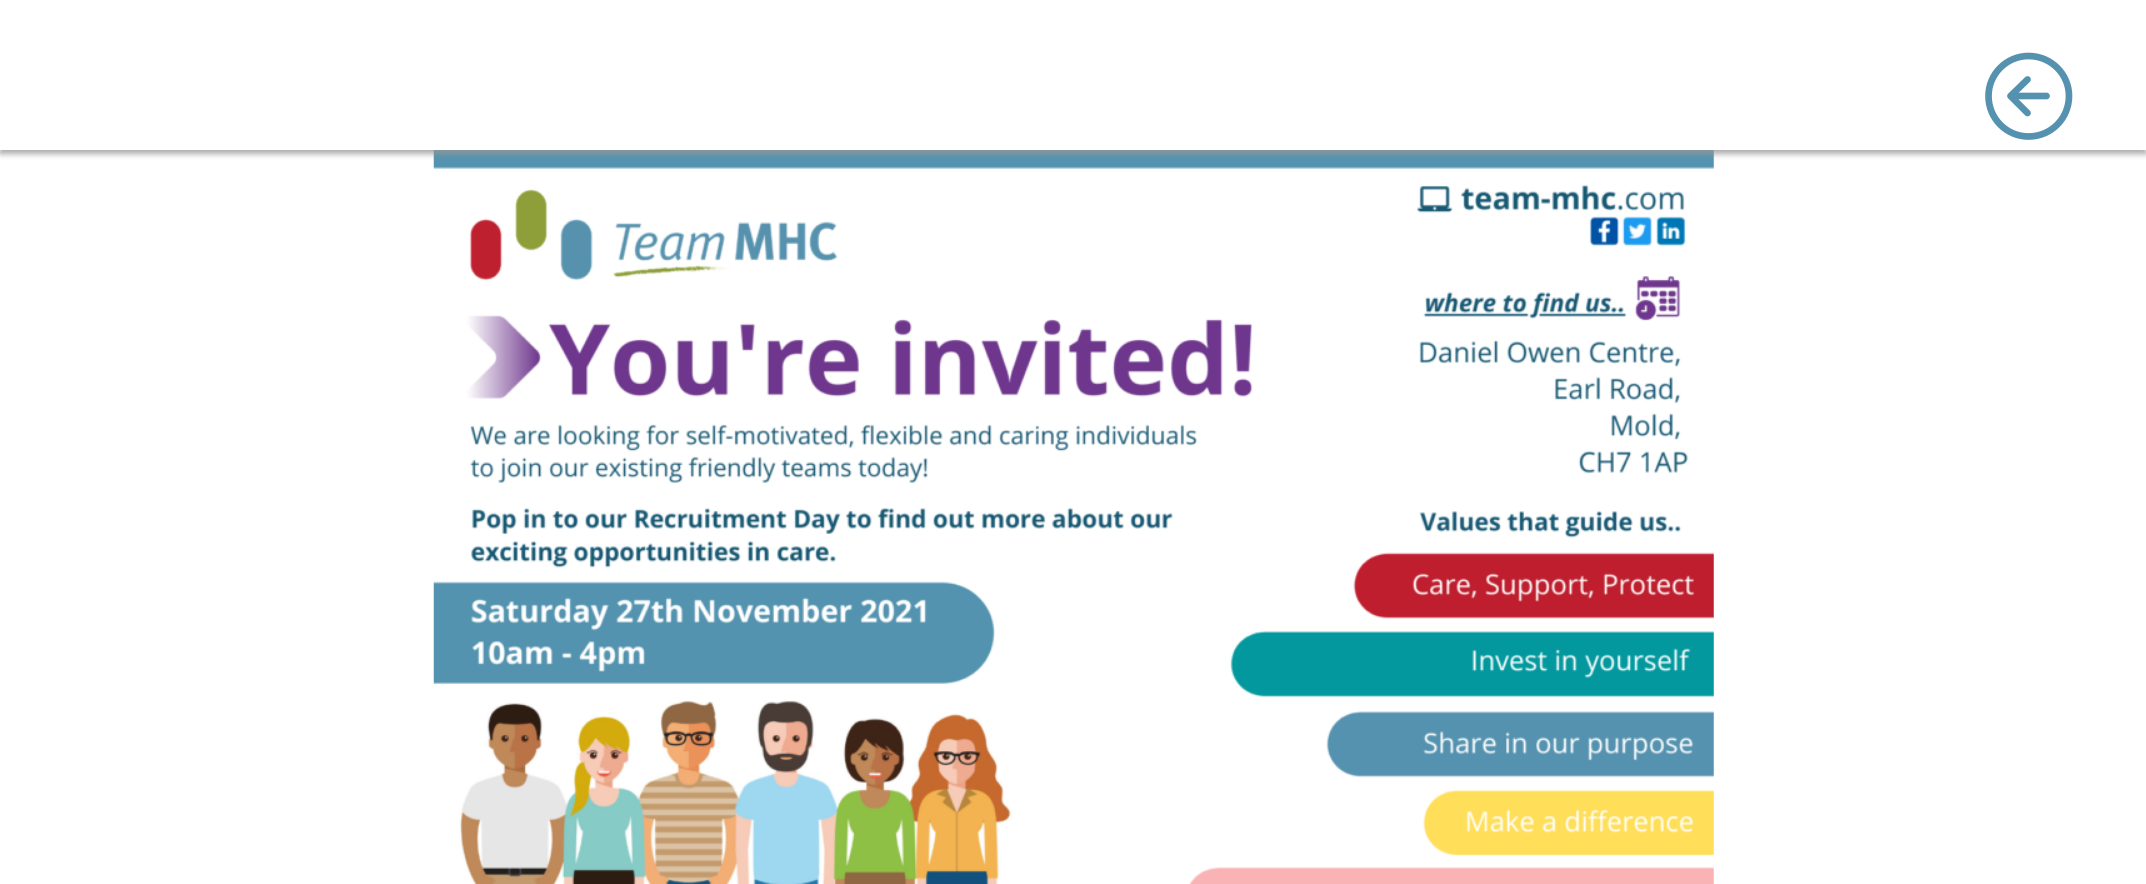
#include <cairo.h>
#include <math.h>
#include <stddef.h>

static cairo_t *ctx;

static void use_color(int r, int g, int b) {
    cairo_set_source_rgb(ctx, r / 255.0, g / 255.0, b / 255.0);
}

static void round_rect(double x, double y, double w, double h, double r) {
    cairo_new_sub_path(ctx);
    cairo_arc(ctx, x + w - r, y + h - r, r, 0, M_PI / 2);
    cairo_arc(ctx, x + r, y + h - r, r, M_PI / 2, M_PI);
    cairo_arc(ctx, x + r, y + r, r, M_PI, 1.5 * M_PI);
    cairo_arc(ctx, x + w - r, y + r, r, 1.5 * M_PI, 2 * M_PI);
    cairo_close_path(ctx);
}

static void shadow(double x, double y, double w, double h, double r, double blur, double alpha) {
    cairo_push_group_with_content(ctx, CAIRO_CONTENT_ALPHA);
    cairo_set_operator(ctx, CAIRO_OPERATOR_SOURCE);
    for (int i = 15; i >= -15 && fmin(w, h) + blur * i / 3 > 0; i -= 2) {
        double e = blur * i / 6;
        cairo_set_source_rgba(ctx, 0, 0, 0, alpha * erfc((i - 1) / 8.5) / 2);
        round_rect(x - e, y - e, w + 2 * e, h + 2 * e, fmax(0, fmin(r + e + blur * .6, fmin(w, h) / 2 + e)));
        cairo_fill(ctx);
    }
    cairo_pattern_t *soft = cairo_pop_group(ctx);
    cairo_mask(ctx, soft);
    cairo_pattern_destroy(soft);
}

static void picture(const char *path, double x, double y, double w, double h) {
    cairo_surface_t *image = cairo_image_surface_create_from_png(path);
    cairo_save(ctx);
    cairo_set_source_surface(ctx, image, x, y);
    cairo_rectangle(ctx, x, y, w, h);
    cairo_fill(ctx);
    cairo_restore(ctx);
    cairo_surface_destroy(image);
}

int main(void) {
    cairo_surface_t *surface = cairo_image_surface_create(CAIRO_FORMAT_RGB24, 2146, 884);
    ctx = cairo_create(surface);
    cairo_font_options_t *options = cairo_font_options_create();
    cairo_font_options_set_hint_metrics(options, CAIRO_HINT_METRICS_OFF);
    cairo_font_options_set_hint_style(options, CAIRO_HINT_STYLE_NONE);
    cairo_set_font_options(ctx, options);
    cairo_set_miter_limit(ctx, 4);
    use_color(255, 255, 255);
    cairo_paint(ctx);
    picture("img1.png", 433, 150, 1281, 734);
    use_color(150, 150, 150);
    shadow(0, 4, 2146, 150, 0, 3, 0.81);
    use_color(255, 255, 255);
    cairo_rectangle(ctx, 0, 0, 2146, 150);
    cairo_fill(ctx);
    cairo_new_path(ctx);
    cairo_move_to(ctx, 2027.5, 113);
    cairo_line_to(ctx, 2010.5, 96);
    cairo_line_to(ctx, 2027.5, 79.5);
    cairo_move_to(ctx, 2013, 96);
    cairo_line_to(ctx, 2046.5, 96);
    use_color(85, 146, 175);
    cairo_set_line_width(ctx, 6.7);
    cairo_set_line_cap(ctx, CAIRO_LINE_CAP_ROUND);
    cairo_set_line_join(ctx, CAIRO_LINE_JOIN_ROUND);
    cairo_stroke(ctx);
    cairo_new_path(ctx);
    cairo_move_to(ctx, 2069, 96);
    cairo_curve_to(ctx, 2069, 74, 2051, 56, 2028.5, 56);
    cairo_curve_to(ctx, 2006.5, 56, 1988.5, 74, 1988.5, 96);
    cairo_curve_to(ctx, 1988.5, 118.5, 2006.5, 136.5, 2028.5, 136.5);
    cairo_curve_to(ctx, 2051, 136.5, 2069, 118.5, 2069, 96);
    cairo_close_path(ctx);
    cairo_set_line_cap(ctx, CAIRO_LINE_CAP_BUTT);
    cairo_set_line_join(ctx, CAIRO_LINE_JOIN_MITER);
    cairo_stroke(ctx);
    cairo_surface_write_to_png(surface, "result.png");
    cairo_font_options_destroy(options);
    cairo_destroy(ctx);
    cairo_surface_destroy(surface);
    return 0;
}
